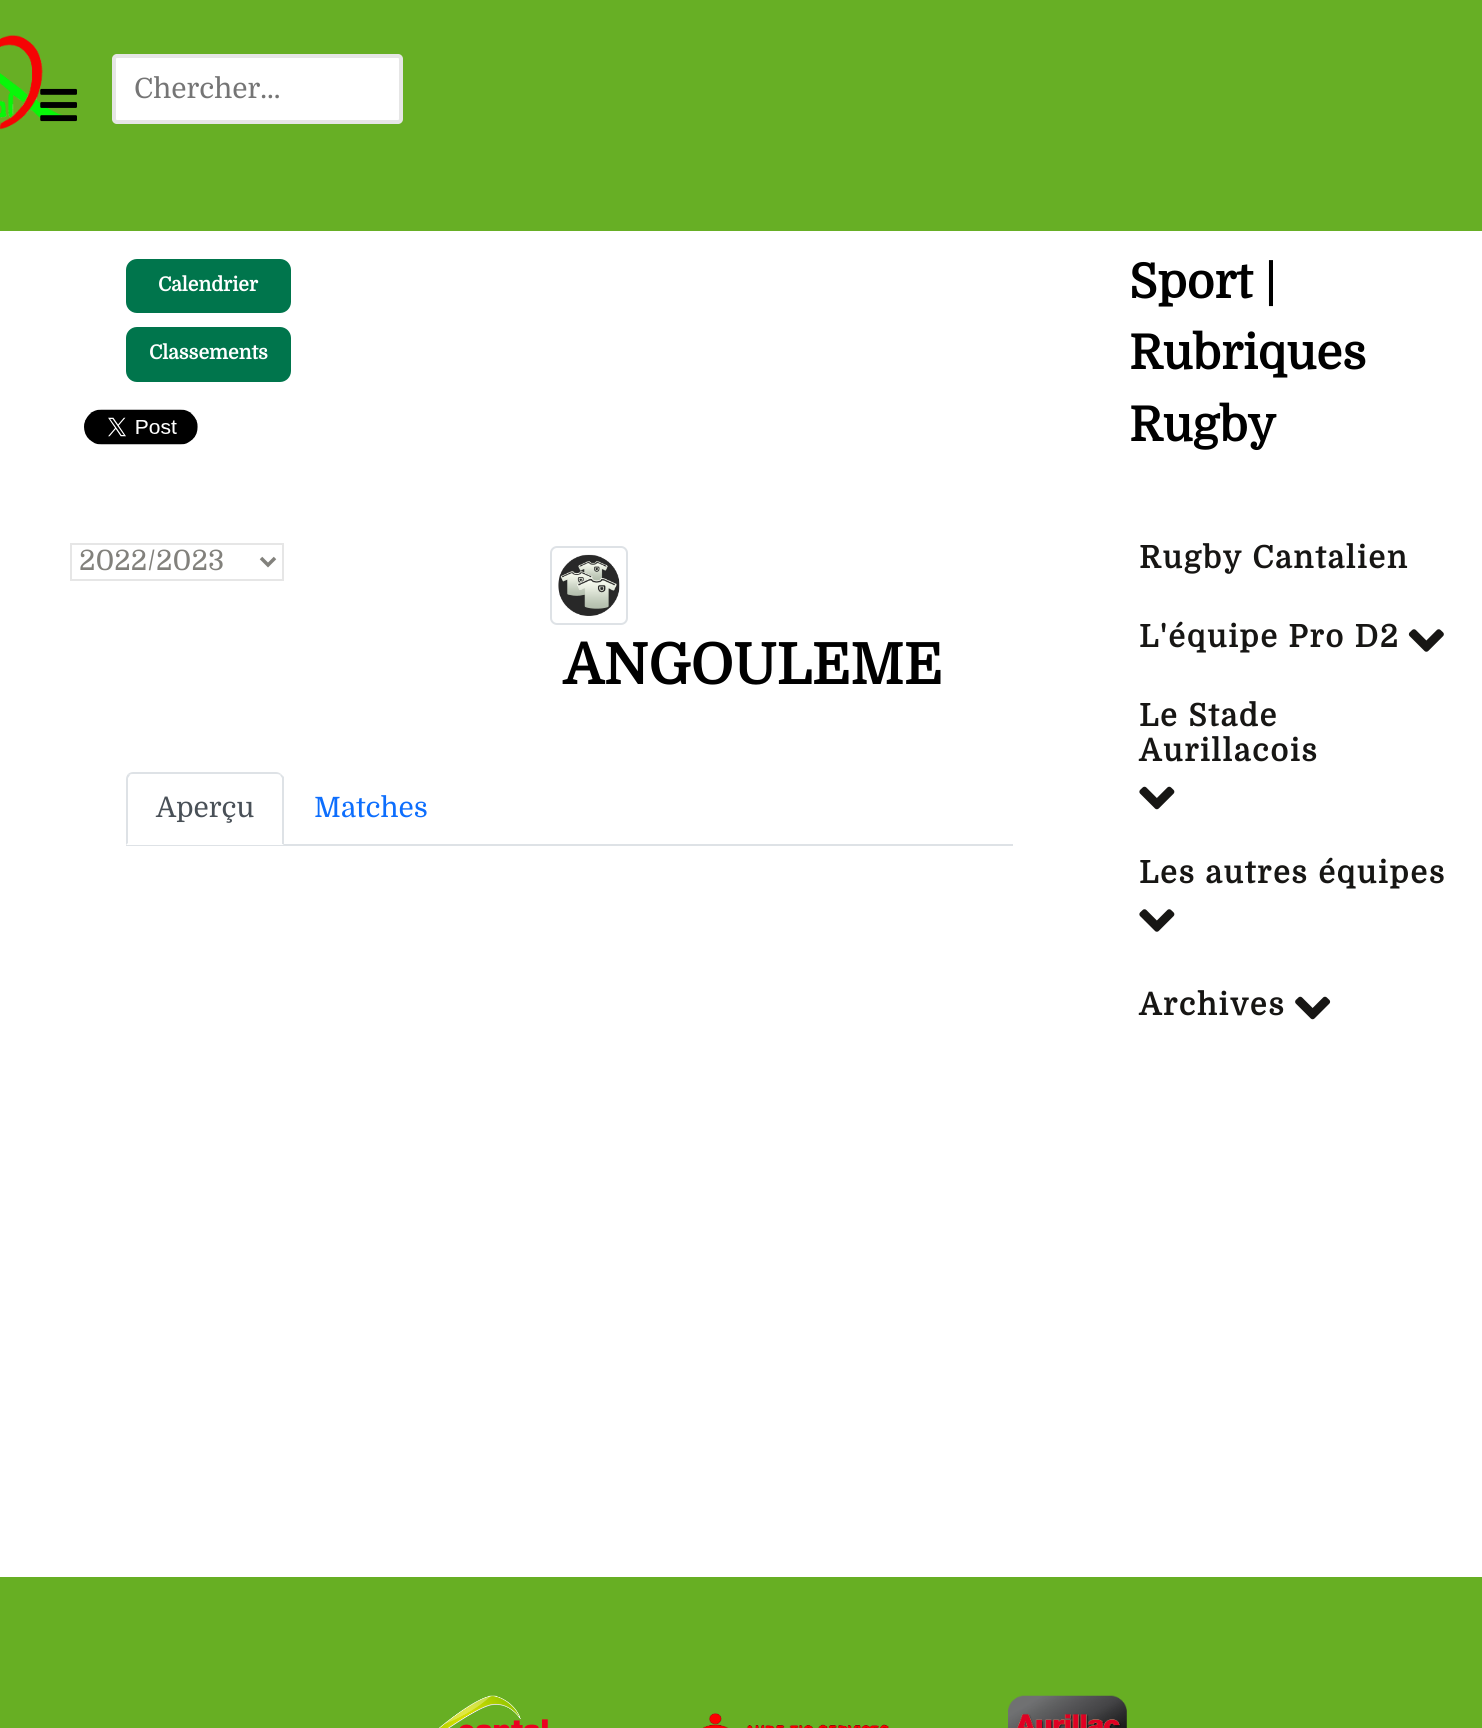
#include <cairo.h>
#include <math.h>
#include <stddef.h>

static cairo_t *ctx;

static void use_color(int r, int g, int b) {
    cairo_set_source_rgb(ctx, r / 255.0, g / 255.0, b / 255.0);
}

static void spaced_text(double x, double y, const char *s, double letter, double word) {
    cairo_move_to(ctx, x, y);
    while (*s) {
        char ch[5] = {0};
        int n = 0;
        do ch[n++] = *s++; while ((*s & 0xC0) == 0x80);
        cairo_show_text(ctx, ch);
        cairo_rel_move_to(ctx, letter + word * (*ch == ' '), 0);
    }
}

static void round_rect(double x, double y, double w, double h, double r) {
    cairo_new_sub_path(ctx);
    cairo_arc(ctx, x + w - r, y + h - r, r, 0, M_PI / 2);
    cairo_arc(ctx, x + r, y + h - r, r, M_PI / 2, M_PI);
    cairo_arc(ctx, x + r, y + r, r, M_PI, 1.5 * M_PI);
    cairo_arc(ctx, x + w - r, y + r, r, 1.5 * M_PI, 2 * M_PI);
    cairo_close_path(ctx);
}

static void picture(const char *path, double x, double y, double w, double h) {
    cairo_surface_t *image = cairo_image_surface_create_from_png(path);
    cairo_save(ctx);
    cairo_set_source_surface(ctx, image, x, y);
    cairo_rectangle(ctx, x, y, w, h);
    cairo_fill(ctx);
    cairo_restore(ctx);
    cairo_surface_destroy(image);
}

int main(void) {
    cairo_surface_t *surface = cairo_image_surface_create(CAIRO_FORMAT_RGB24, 1482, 1728);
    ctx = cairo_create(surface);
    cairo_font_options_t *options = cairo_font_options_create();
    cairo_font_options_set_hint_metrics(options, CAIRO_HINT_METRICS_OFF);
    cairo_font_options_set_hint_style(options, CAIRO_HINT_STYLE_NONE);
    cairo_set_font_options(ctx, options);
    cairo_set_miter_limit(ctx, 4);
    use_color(255, 255, 255);
    cairo_paint(ctx);
    use_color(103, 175, 37);
    cairo_rectangle(ctx, 0, 0, 1482, 231);
    cairo_fill(ctx);
    picture("img2.png", 0, 35, 64, 95);
    picture("img1.png", 40, 88, 37, 34);
    use_color(255, 255, 255);
    round_rect(112, 54, 291, 70, 5);
    cairo_fill(ctx);
    round_rect(114, 56, 287, 66, 3);
    cairo_set_source_rgba(ctx, 0, 0, 0, 0.1);
    cairo_set_line_width(ctx, 4);
    cairo_stroke(ctx);
    cairo_select_font_face(ctx, "Domine", CAIRO_FONT_SLANT_NORMAL, CAIRO_FONT_WEIGHT_NORMAL);
    cairo_set_font_size(ctx, 28);
    use_color(117, 117, 117);
    cairo_move_to(ctx, 134, 98);
    cairo_show_text(ctx, "Chercher...");
    use_color(0, 117, 76);
    round_rect(126, 259, 165, 54, 11);
    cairo_fill(ctx);
    cairo_select_font_face(ctx, "Domine", CAIRO_FONT_SLANT_NORMAL, CAIRO_FONT_WEIGHT_BOLD);
    cairo_set_font_size(ctx, 19.5);
    use_color(255, 255, 255);
    cairo_move_to(ctx, 158, 291);
    cairo_show_text(ctx, "Calendrier");
    use_color(0, 117, 76);
    round_rect(126, 327, 165, 55, 11);
    cairo_fill(ctx);
    use_color(255, 255, 255);
    cairo_move_to(ctx, 149, 359);
    cairo_show_text(ctx, "Classements");
    picture("img3.png", 84, 409, 114, 36);
    cairo_rectangle(ctx, 71, 544, 212, 36);
    use_color(230, 230, 230);
    cairo_set_line_width(ctx, 2);
    cairo_stroke(ctx);
    cairo_new_path(ctx);
    cairo_move_to(ctx, 261, 558);
    cairo_line_to(ctx, 268, 565);
    cairo_line_to(ctx, 275, 558);
    use_color(130, 129, 124);
    cairo_set_line_width(ctx, 3.5);
    cairo_stroke(ctx);
    cairo_select_font_face(ctx, "Domine", CAIRO_FONT_SLANT_NORMAL, CAIRO_FONT_WEIGHT_NORMAL);
    cairo_set_font_size(ctx, 28);
    cairo_move_to(ctx, 79, 570);
    cairo_show_text(ctx, "2022/2023");
    round_rect(551, 547, 76, 77, 6);
    use_color(222, 226, 230);
    cairo_set_line_width(ctx, 2);
    cairo_stroke(ctx);
    picture("img4.png", 558, 554, 62, 62);
    cairo_select_font_face(ctx, "Domine", CAIRO_FONT_SLANT_NORMAL, CAIRO_FONT_WEIGHT_BOLD);
    cairo_set_font_size(ctx, 56);
    use_color(0, 0, 0);
    cairo_move_to(ctx, 563, 684);
    cairo_show_text(ctx, "ANGOULEME");
    use_color(222, 226, 230);
    cairo_rectangle(ctx, 126, 844, 887, 2);
    cairo_fill(ctx);
    use_color(255, 255, 255);
    cairo_new_path(ctx);
    cairo_move_to(ctx, 133, 772);
    cairo_line_to(ctx, 277, 772);
    cairo_curve_to(ctx, 281, 772, 284, 775, 284, 779);
    cairo_line_to(ctx, 284, 845);
    cairo_line_to(ctx, 126, 845);
    cairo_line_to(ctx, 126, 779);
    cairo_curve_to(ctx, 126, 775, 129, 772, 133, 772);
    cairo_close_path(ctx);
    cairo_fill(ctx);
    use_color(222, 226, 230);
    cairo_new_path(ctx);
    cairo_move_to(ctx, 133, 772);
    cairo_curve_to(ctx, 131, 772, 129, 773, 128, 774);
    cairo_line_to(ctx, 130, 775);
    cairo_curve_to(ctx, 130, 774, 132, 774, 133, 774);
    cairo_line_to(ctx, 276, 774);
    cairo_curve_to(ctx, 277, 774, 279, 774, 280, 775);
    cairo_line_to(ctx, 281, 774);
    cairo_curve_to(ctx, 280, 773, 278, 772, 276, 772);
    cairo_close_path(ctx);
    cairo_fill(ctx);
    cairo_new_path(ctx);
    cairo_move_to(ctx, 281, 774);
    cairo_line_to(ctx, 284, 777);
    cairo_line_to(ctx, 284, 845);
    cairo_line_to(ctx, 282, 844);
    cairo_line_to(ctx, 282, 778);
    cairo_line_to(ctx, 280, 775);
    cairo_close_path(ctx);
    cairo_fill(ctx);
    use_color(255, 255, 255);
    cairo_new_path(ctx);
    cairo_move_to(ctx, 283, 845);
    cairo_line_to(ctx, 126, 845);
    cairo_line_to(ctx, 128, 843);
    cairo_line_to(ctx, 128, 844);
    cairo_line_to(ctx, 282, 844);
    cairo_close_path(ctx);
    cairo_fill(ctx);
    use_color(222, 226, 230);
    cairo_new_path(ctx);
    cairo_move_to(ctx, 126, 779);
    cairo_line_to(ctx, 126, 845);
    cairo_line_to(ctx, 128, 843);
    cairo_line_to(ctx, 128, 778);
    cairo_line_to(ctx, 130, 775);
    cairo_line_to(ctx, 128, 774);
    cairo_curve_to(ctx, 127, 775, 126, 777, 126, 779);
    cairo_close_path(ctx);
    cairo_fill(ctx);
    cairo_select_font_face(ctx, "Domine", CAIRO_FONT_SLANT_NORMAL, CAIRO_FONT_WEIGHT_NORMAL);
    cairo_set_font_size(ctx, 28);
    use_color(73, 80, 87);
    cairo_move_to(ctx, 156, 817);
    cairo_show_text(ctx, "Aperçu");
    use_color(13, 110, 253);
    cairo_move_to(ctx, 314, 817);
    cairo_show_text(ctx, "Matches");
    cairo_select_font_face(ctx, "Domine", CAIRO_FONT_SLANT_NORMAL, CAIRO_FONT_WEIGHT_BOLD);
    cairo_set_font_size(ctx, 47.5);
    use_color(0, 0, 0);
    cairo_move_to(ctx, 1129, 298);
    cairo_show_text(ctx, "Sport |");
    cairo_move_to(ctx, 1129, 369);
    cairo_show_text(ctx, "Rubriques");
    cairo_move_to(ctx, 1129, 441);
    cairo_show_text(ctx, "Rugby");
    cairo_set_font_size(ctx, 30.75);
    use_color(23, 22, 20);
    spaced_text(1139, 568, "Rugby Cantalien", 1.75, 0);
    spaced_text(1139, 647, "L'équipe Pro D2", 1.75, 0);
    picture("img5.png", 1408, 629, 36, 23);
    spaced_text(1139, 726, "Le Stade", 1.75, 0);
    spaced_text(1139, 761, "Aurillacois", 1.75, 0);
    picture("img6.png", 1139, 786, 36, 24);
    spaced_text(1139, 883, "Les autres équipes", 1.75, 0);
    picture("img7.png", 1139, 909, 36, 23);
    spaced_text(1139, 1015, "Archives", 1.75, 0);
    picture("img8.png", 1295, 996, 36, 24);
    use_color(103, 175, 35);
    cairo_rectangle(ctx, 0, 1577, 1482, 151);
    cairo_fill(ctx);
    picture("img9.png", 439, 1695, 109, 33);
    picture("img10.png", 702, 1713, 187, 15);
    picture("img11.png", 1008, 1695, 119, 33);
    cairo_surface_write_to_png(surface, "result.png");
    cairo_font_options_destroy(options);
    cairo_destroy(ctx);
    cairo_surface_destroy(surface);
    return 0;
}
